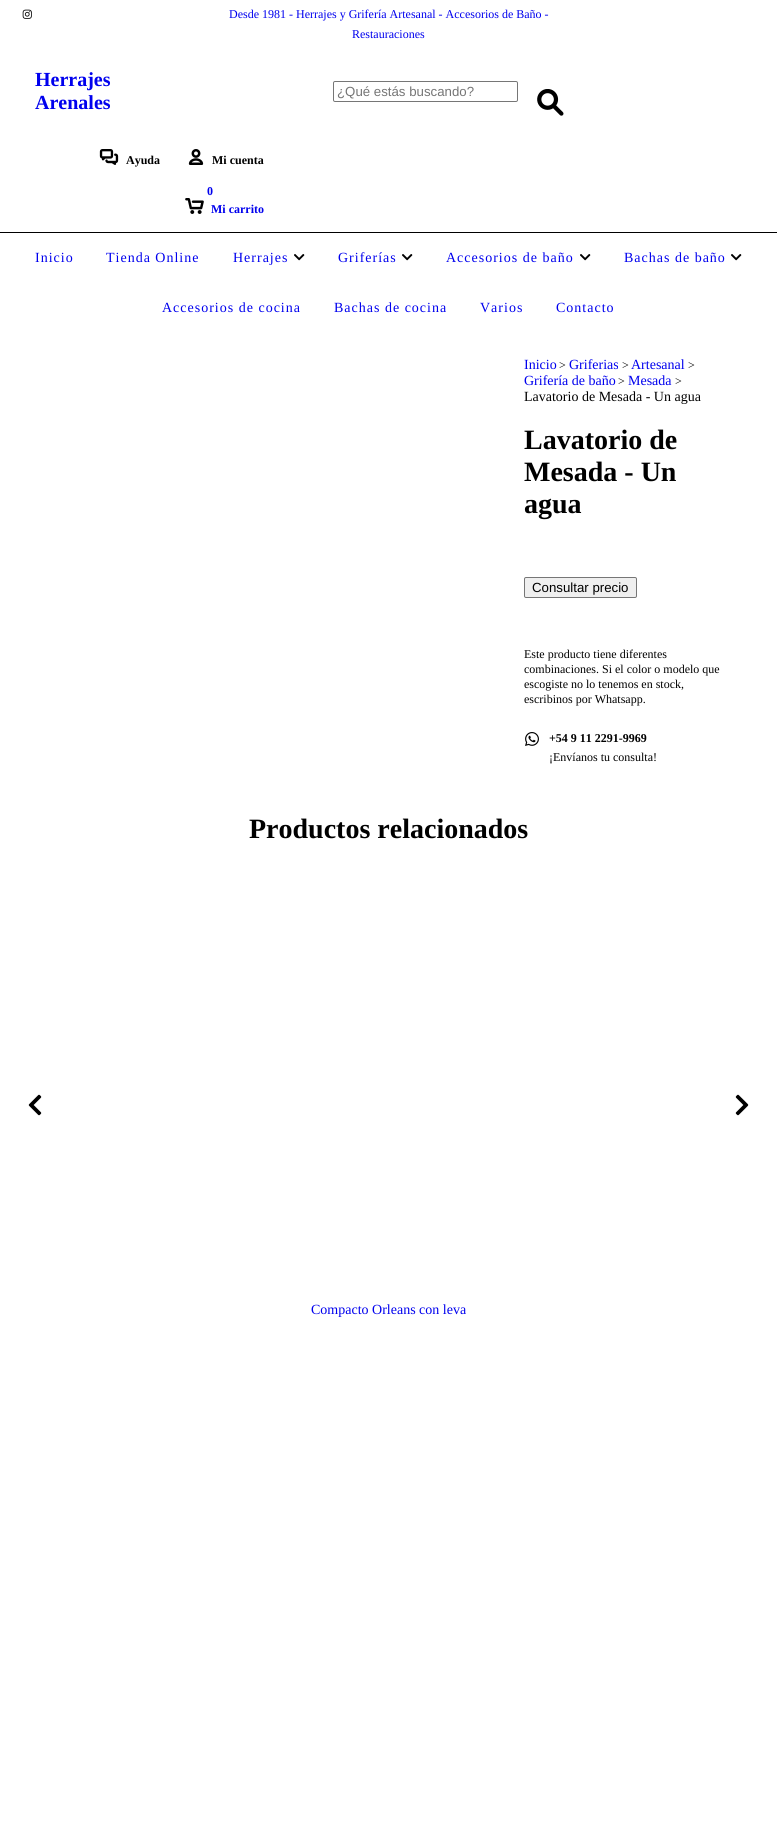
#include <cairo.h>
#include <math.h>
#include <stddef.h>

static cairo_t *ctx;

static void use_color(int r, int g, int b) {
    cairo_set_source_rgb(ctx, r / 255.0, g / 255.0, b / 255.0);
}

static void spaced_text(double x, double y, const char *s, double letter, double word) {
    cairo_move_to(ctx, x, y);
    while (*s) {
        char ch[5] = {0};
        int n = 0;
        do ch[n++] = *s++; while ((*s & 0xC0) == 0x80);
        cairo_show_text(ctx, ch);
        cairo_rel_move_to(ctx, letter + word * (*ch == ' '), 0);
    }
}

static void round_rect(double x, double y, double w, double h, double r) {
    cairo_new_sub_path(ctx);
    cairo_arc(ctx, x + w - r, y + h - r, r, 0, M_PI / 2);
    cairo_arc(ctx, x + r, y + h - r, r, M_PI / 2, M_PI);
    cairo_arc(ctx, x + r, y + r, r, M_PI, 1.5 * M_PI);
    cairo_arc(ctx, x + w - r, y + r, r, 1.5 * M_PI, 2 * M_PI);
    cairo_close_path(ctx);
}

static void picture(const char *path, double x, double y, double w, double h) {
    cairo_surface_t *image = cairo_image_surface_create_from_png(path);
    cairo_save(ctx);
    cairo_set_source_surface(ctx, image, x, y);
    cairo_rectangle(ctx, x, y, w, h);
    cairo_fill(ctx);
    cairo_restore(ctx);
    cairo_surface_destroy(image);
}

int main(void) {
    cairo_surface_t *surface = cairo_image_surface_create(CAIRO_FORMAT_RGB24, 777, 1822);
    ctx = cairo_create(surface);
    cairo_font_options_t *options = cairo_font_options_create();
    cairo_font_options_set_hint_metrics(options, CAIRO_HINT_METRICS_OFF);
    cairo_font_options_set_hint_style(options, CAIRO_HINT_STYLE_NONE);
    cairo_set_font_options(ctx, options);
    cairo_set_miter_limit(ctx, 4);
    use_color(255, 255, 255);
    cairo_paint(ctx);
    picture("img1.png", 22, 9, 10, 10);
    cairo_select_font_face(ctx, "Liberation Serif", CAIRO_FONT_SLANT_NORMAL, CAIRO_FONT_WEIGHT_NORMAL);
    cairo_set_font_size(ctx, 12);
    use_color(0, 0, 238);
    cairo_move_to(ctx, 229, 18);
    cairo_show_text(ctx, "Desde 1981 - Herrajes y Grifería Artesanal - Accesorios de Baño -");
    cairo_move_to(ctx, 352, 38);
    cairo_show_text(ctx, "Restauraciones");
    cairo_select_font_face(ctx, "Liberation Serif", CAIRO_FONT_SLANT_NORMAL, CAIRO_FONT_WEIGHT_BOLD);
    cairo_set_font_size(ctx, 20);
    cairo_move_to(ctx, 35, 86);
    cairo_show_text(ctx, "Herrajes");
    cairo_move_to(ctx, 35, 109);
    cairo_show_text(ctx, "Arenales");
    round_rect(333.5, 81.5, 184, 20, 1.5);
    use_color(118, 118, 118);
    cairo_set_line_width(ctx, 1);
    cairo_stroke(ctx);
    cairo_select_font_face(ctx, "Liberation Sans", CAIRO_FONT_SLANT_NORMAL, CAIRO_FONT_WEIGHT_NORMAL);
    cairo_set_font_size(ctx, 13.25);
    use_color(117, 117, 117);
    cairo_move_to(ctx, 337, 96);
    cairo_show_text(ctx, "¿Qué estás buscando?");
    picture("img2.png", 537, 89, 27, 27);
    picture("img3.png", 99, 149, 20, 16);
    cairo_select_font_face(ctx, "Liberation Serif", CAIRO_FONT_SLANT_NORMAL, CAIRO_FONT_WEIGHT_BOLD);
    cairo_set_font_size(ctx, 12);
    use_color(0, 0, 0);
    cairo_move_to(ctx, 126, 164);
    cairo_show_text(ctx, "Ayuda");
    picture("img4.png", 188, 149, 16, 16);
    cairo_move_to(ctx, 212, 164);
    cairo_show_text(ctx, "Mi cuenta");
    use_color(0, 0, 238);
    cairo_move_to(ctx, 207, 195);
    cairo_show_text(ctx, "0");
    picture("img5.png", 185, 198, 19, 16);
    cairo_move_to(ctx, 211, 213);
    cairo_show_text(ctx, "Mi carrito");
    use_color(0, 0, 0);
    cairo_rectangle(ctx, 0, 232, 777, 1);
    cairo_fill(ctx);
    cairo_select_font_face(ctx, "Liberation Serif", CAIRO_FONT_SLANT_NORMAL, CAIRO_FONT_WEIGHT_NORMAL);
    cairo_set_font_size(ctx, 14);
    use_color(0, 0, 238);
    spaced_text(35, 262, "Inicio", 1, 0);
    spaced_text(106, 262, "Tienda Online", 1, 0);
    spaced_text(233, 262, "Herrajes", 1, 0);
    picture("img6.png", 294, 254, 11, 7);
    spaced_text(338, 262, "Griferías", 1, 0);
    picture("img6.png", 402, 254, 11, 7);
    spaced_text(446, 262, "Accesorios de baño", 1, 0);
    picture("img6.png", 580, 254, 11, 7);
    spaced_text(624, 262, "Bachas de baño", 1, 0);
    picture("img6.png", 731, 254, 11, 7);
    spaced_text(162, 312, "Accesorios de cocina", 1, 0);
    spaced_text(334, 312, "Bachas de cocina", 1, 0);
    spaced_text(480, 312, "Varios", 1, 0);
    spaced_text(556, 312, "Contacto", 1, 0);
    cairo_move_to(ctx, 524, 369);
    cairo_show_text(ctx, "Inicio");
    cairo_set_font_size(ctx, 12);
    use_color(0, 0, 0);
    cairo_move_to(ctx, 559, 369);
    cairo_show_text(ctx, ">");
    cairo_set_font_size(ctx, 14);
    use_color(0, 0, 238);
    cairo_move_to(ctx, 569, 369);
    cairo_show_text(ctx, "Griferias");
    cairo_set_font_size(ctx, 12);
    use_color(0, 0, 0);
    cairo_move_to(ctx, 622, 369);
    cairo_show_text(ctx, ">");
    cairo_set_font_size(ctx, 14);
    use_color(0, 0, 238);
    cairo_move_to(ctx, 631, 369);
    cairo_show_text(ctx, "Artesanal");
    cairo_set_font_size(ctx, 12);
    use_color(0, 0, 0);
    cairo_move_to(ctx, 688, 369);
    cairo_show_text(ctx, ">");
    cairo_set_font_size(ctx, 14);
    use_color(0, 0, 238);
    cairo_move_to(ctx, 524, 385);
    cairo_show_text(ctx, "Grifería de baño");
    cairo_set_font_size(ctx, 12);
    use_color(0, 0, 0);
    cairo_move_to(ctx, 618, 385);
    cairo_show_text(ctx, ">");
    cairo_set_font_size(ctx, 14);
    use_color(0, 0, 238);
    cairo_move_to(ctx, 628, 385);
    cairo_show_text(ctx, "Mesada");
    cairo_set_font_size(ctx, 12);
    use_color(0, 0, 0);
    cairo_move_to(ctx, 675, 385);
    cairo_show_text(ctx, ">");
    cairo_set_font_size(ctx, 14);
    cairo_move_to(ctx, 524, 401);
    cairo_show_text(ctx, "Lavatorio de Mesada - Un agua");
    cairo_select_font_face(ctx, "Liberation Serif", CAIRO_FONT_SLANT_NORMAL, CAIRO_FONT_WEIGHT_BOLD);
    cairo_set_font_size(ctx, 28);
    cairo_move_to(ctx, 524, 449);
    cairo_show_text(ctx, "Lavatorio de");
    cairo_move_to(ctx, 524, 481);
    cairo_show_text(ctx, "Mesada - Un");
    cairo_move_to(ctx, 524, 513);
    cairo_show_text(ctx, "agua");
    use_color(239, 239, 239);
    round_rect(524.5, 577.5, 112, 20, 1.5);
    cairo_fill_preserve(ctx);
    use_color(118, 118, 118);
    cairo_stroke(ctx);
    cairo_select_font_face(ctx, "Liberation Sans", CAIRO_FONT_SLANT_NORMAL, CAIRO_FONT_WEIGHT_NORMAL);
    cairo_set_font_size(ctx, 13.25);
    use_color(0, 0, 0);
    cairo_move_to(ctx, 532, 592);
    cairo_show_text(ctx, "Consultar precio");
    cairo_select_font_face(ctx, "Liberation Serif", CAIRO_FONT_SLANT_NORMAL, CAIRO_FONT_WEIGHT_NORMAL);
    cairo_set_font_size(ctx, 12);
    cairo_move_to(ctx, 524, 658);
    cairo_show_text(ctx, "Este producto tiene diferentes");
    cairo_move_to(ctx, 524, 673);
    cairo_show_text(ctx, "combinaciones. Si el color o modelo que");
    cairo_move_to(ctx, 524, 688);
    cairo_show_text(ctx, "escogiste no lo tenemos en stock,");
    cairo_move_to(ctx, 524, 703);
    cairo_show_text(ctx, "escribinos por Whatsapp.");
    picture("img7.png", 525, 732, 14, 14);
    cairo_select_font_face(ctx, "Liberation Serif", CAIRO_FONT_SLANT_NORMAL, CAIRO_FONT_WEIGHT_BOLD);
    cairo_move_to(ctx, 549, 742);
    cairo_show_text(ctx, "+54 9 11 2291-9969");
    cairo_select_font_face(ctx, "Liberation Serif", CAIRO_FONT_SLANT_NORMAL, CAIRO_FONT_WEIGHT_NORMAL);
    cairo_move_to(ctx, 549, 761);
    cairo_show_text(ctx, "¡Envíanos tu consulta!");
    cairo_select_font_face(ctx, "Liberation Serif", CAIRO_FONT_SLANT_NORMAL, CAIRO_FONT_WEIGHT_BOLD);
    cairo_set_font_size(ctx, 28);
    cairo_move_to(ctx, 249, 838);
    cairo_show_text(ctx, "Productos relacionados");
    picture("img8.png", 28, 1094, 14, 22);
    picture("img9.png", 735, 1094, 14, 22);
    cairo_select_font_face(ctx, "Liberation Serif", CAIRO_FONT_SLANT_NORMAL, CAIRO_FONT_WEIGHT_NORMAL);
    cairo_set_font_size(ctx, 14);
    use_color(0, 0, 238);
    cairo_move_to(ctx, 311, 1314);
    cairo_show_text(ctx, "Compacto Orleans con leva");
    cairo_surface_write_to_png(surface, "result.png");
    cairo_font_options_destroy(options);
    cairo_destroy(ctx);
    cairo_surface_destroy(surface);
    return 0;
}
